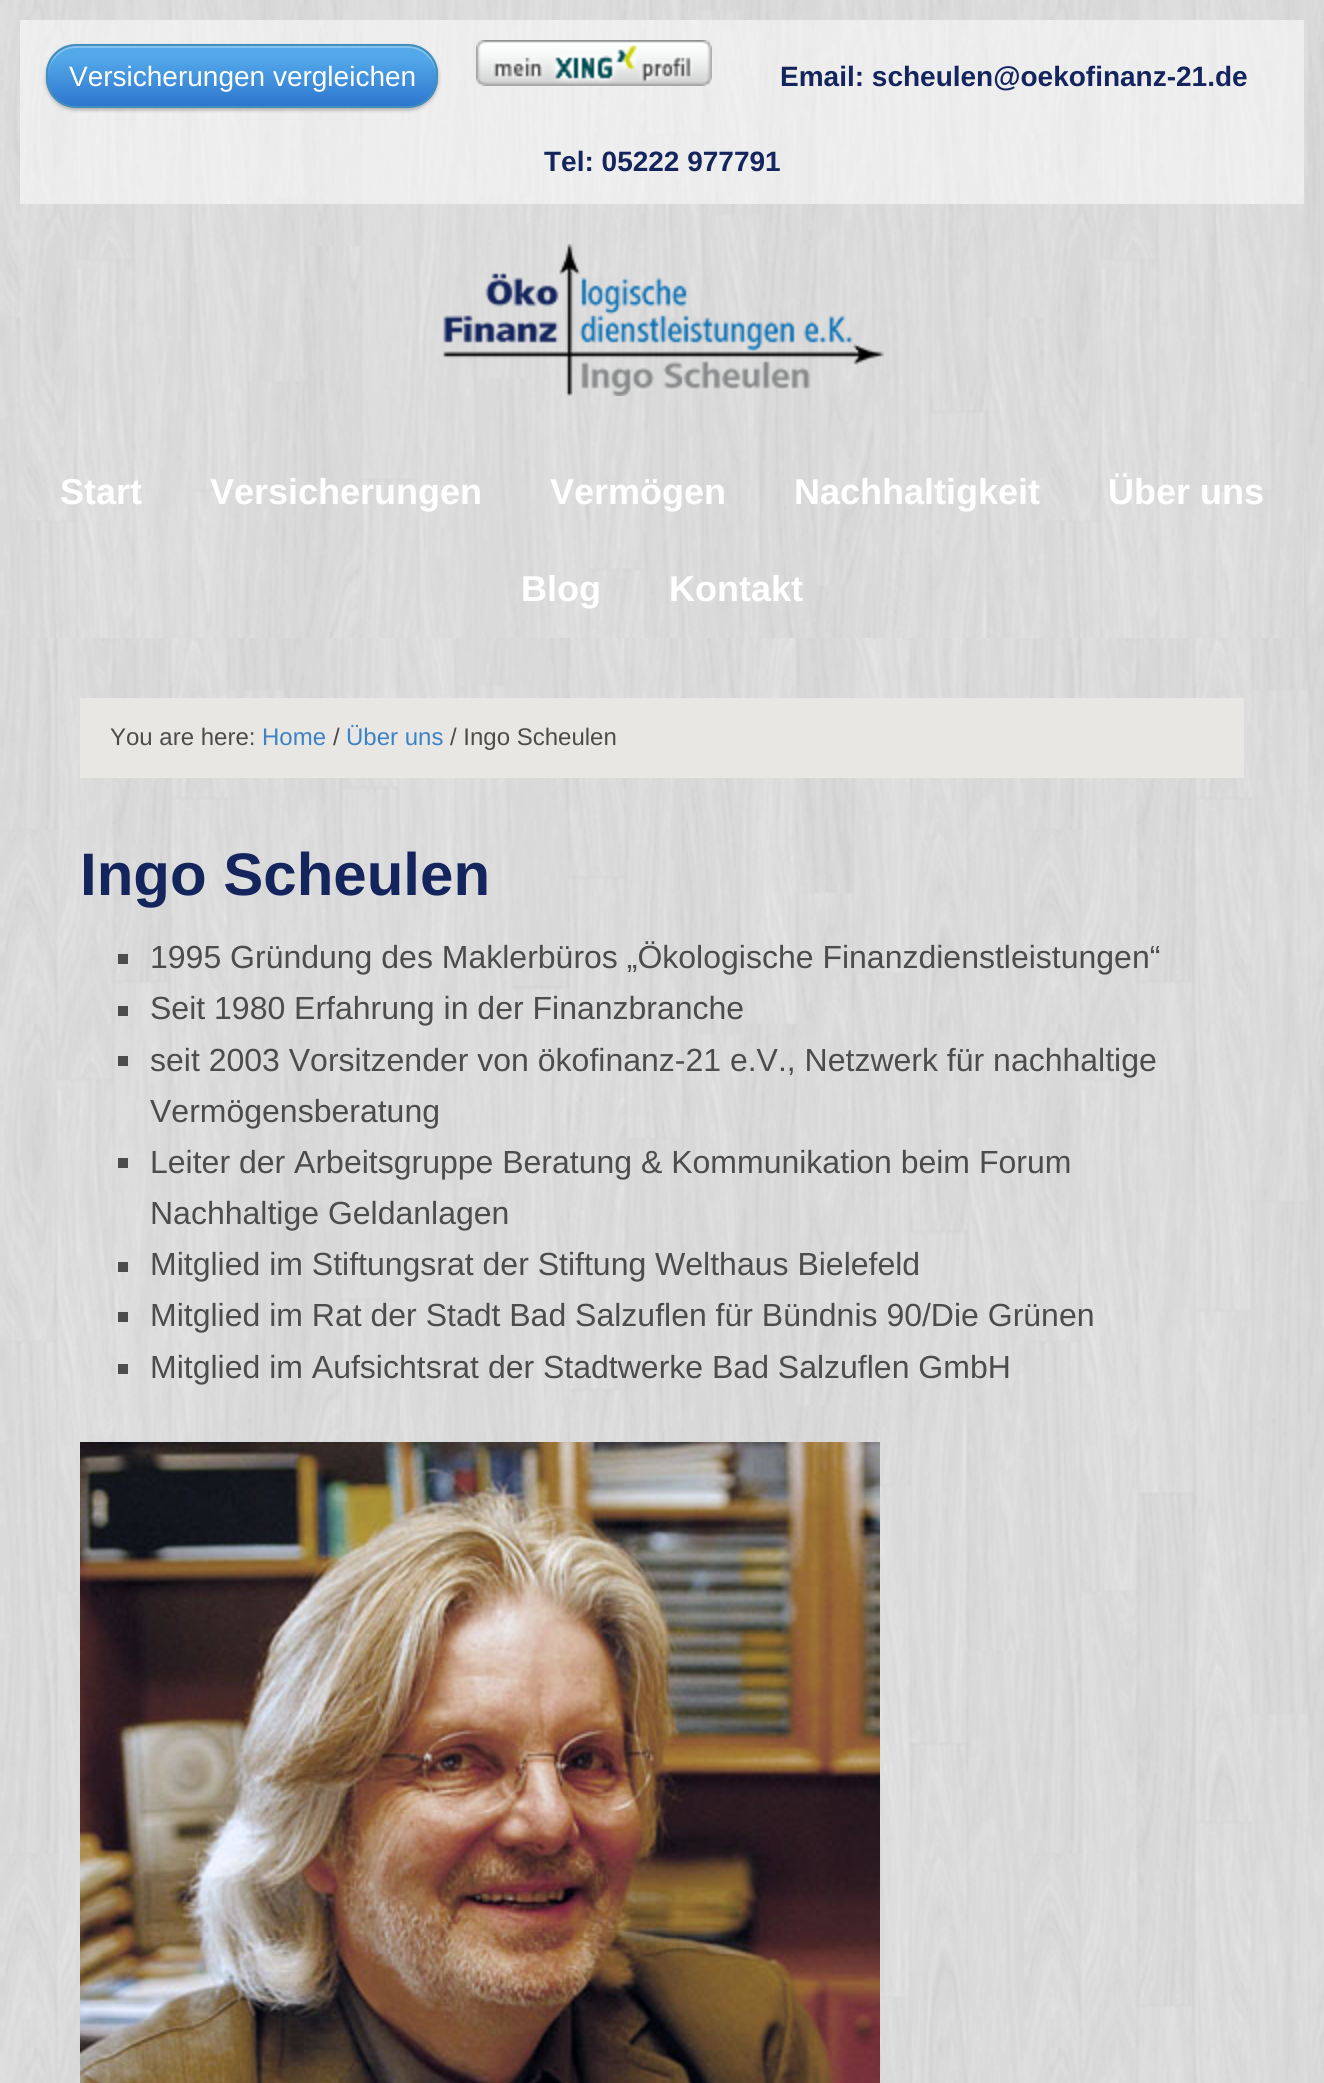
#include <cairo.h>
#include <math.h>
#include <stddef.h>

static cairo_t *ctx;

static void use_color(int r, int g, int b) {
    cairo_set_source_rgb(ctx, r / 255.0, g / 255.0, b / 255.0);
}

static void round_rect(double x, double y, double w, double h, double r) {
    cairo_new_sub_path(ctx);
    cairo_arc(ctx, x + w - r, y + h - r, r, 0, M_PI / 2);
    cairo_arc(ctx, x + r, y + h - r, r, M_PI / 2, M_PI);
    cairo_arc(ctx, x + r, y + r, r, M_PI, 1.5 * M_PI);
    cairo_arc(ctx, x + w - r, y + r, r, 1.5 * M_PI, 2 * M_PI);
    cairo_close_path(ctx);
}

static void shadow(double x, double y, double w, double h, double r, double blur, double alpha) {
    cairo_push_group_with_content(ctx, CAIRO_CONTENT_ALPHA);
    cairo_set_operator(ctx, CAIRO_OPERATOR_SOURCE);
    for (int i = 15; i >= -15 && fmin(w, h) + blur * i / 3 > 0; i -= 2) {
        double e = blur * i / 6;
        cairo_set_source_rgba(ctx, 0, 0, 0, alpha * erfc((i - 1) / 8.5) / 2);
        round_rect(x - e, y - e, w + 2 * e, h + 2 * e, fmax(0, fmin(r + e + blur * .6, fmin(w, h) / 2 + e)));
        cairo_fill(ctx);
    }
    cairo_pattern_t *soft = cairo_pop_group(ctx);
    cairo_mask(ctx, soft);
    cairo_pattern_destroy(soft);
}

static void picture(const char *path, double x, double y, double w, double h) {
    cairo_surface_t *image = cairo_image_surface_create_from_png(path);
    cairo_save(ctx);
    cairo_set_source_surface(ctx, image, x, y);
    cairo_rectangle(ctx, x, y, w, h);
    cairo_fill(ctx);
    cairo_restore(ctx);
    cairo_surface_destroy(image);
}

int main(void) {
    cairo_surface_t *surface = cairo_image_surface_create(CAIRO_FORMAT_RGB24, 1324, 2083);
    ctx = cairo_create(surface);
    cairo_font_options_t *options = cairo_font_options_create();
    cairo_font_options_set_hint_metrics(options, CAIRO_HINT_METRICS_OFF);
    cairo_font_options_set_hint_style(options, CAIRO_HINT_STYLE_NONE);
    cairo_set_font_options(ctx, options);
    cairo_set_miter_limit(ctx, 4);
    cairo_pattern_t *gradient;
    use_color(255, 255, 255);
    cairo_paint(ctx);
    picture("img1.png", 0, 0, 1324, 2083);
    picture("img2.png", 20, 20, 1284, 184);
    use_color(0, 0, 0);
    shadow(46, 46, 392, 64, 30, 2, 0.29);
    cairo_save(ctx);
    round_rect(46, 44, 392, 64, 30);
    cairo_clip(ctx);
    gradient = cairo_pattern_create_linear(48, 46, 48, 106);
    cairo_pattern_add_color_stop_rgba(gradient, 0.2, 0.322, 0.659, 0.91, 1);
    cairo_pattern_add_color_stop_rgba(gradient, 1, 0.18, 0.463, 0.812, 1);
    cairo_set_source(ctx, gradient);
    cairo_pattern_destroy(gradient);
    cairo_rectangle(ctx, 46, 46, 392, 60);
    cairo_fill(ctx);
    cairo_restore(ctx);
    cairo_set_source_rgba(ctx, 1, 1, 1, 0.3);
    cairo_new_path(ctx);
    cairo_move_to(ctx, 76, 48);
    cairo_line_to(ctx, 408, 48);
    cairo_curve_to(ctx, 423, 48, 436, 61, 436, 76);
    cairo_line_to(ctx, 436, 74);
    cairo_curve_to(ctx, 436, 59, 423, 46, 408, 46);
    cairo_line_to(ctx, 76, 46);
    cairo_curve_to(ctx, 61, 46, 48, 59, 48, 74);
    cairo_line_to(ctx, 48, 76);
    cairo_curve_to(ctx, 48, 61, 61, 48, 76, 48);
    cairo_close_path(ctx);
    cairo_fill(ctx);
    round_rect(47, 45, 390, 62, 29);
    use_color(65, 143, 188);
    cairo_stroke(ctx);
    cairo_select_font_face(ctx, "Liberation Sans", CAIRO_FONT_SLANT_NORMAL, CAIRO_FONT_WEIGHT_NORMAL);
    cairo_set_font_size(ctx, 28);
    use_color(255, 255, 255);
    cairo_move_to(ctx, 69, 86);
    cairo_show_text(ctx, "Versicherungen vergleichen");
    picture("img3.png", 476, 40, 236, 46);
    cairo_select_font_face(ctx, "Liberation Sans", CAIRO_FONT_SLANT_NORMAL, CAIRO_FONT_WEIGHT_BOLD);
    use_color(20, 36, 92);
    cairo_move_to(ctx, 780, 86);
    cairo_show_text(ctx, "Email: scheulen@oekofinanz-21.de");
    cairo_move_to(ctx, 544, 171);
    cairo_show_text(ctx, "Tel: 05222 977791");
    picture("img4.png", 20, 204, 1284, 434);
    picture("img5.png", 443, 244, 441, 152);
    cairo_set_font_size(ctx, 36);
    use_color(255, 255, 255);
    cairo_move_to(ctx, 60, 504);
    cairo_show_text(ctx, "Start");
    cairo_move_to(ctx, 210, 504);
    cairo_show_text(ctx, "Versicherungen");
    cairo_move_to(ctx, 550, 504);
    cairo_show_text(ctx, "Vermögen");
    cairo_move_to(ctx, 794, 504);
    cairo_show_text(ctx, "Nachhaltigkeit");
    cairo_move_to(ctx, 1108, 504);
    cairo_show_text(ctx, "Über uns");
    cairo_move_to(ctx, 521, 601);
    cairo_show_text(ctx, "Blog");
    cairo_move_to(ctx, 669, 601);
    cairo_show_text(ctx, "Kontakt");
    use_color(232, 231, 227);
    cairo_rectangle(ctx, 80, 698, 1164, 80);
    cairo_fill(ctx);
    cairo_select_font_face(ctx, "Liberation Sans", CAIRO_FONT_SLANT_NORMAL, CAIRO_FONT_WEIGHT_NORMAL);
    cairo_set_font_size(ctx, 24);
    use_color(76, 76, 76);
    cairo_move_to(ctx, 110, 745);
    cairo_show_text(ctx, "You are here:");
    use_color(59, 130, 199);
    cairo_move_to(ctx, 262, 745);
    cairo_show_text(ctx, "Home");
    use_color(76, 76, 76);
    cairo_move_to(ctx, 333, 745);
    cairo_show_text(ctx, "/");
    use_color(59, 130, 199);
    cairo_move_to(ctx, 346, 745);
    cairo_show_text(ctx, "Über uns");
    use_color(76, 76, 76);
    cairo_move_to(ctx, 450, 745);
    cairo_show_text(ctx, "/ Ingo Scheulen");
    cairo_select_font_face(ctx, "Liberation Sans", CAIRO_FONT_SLANT_NORMAL, CAIRO_FONT_WEIGHT_BOLD);
    cairo_set_font_size(ctx, 60);
    use_color(20, 36, 92);
    cairo_move_to(ctx, 80, 895);
    cairo_show_text(ctx, "Ingo Scheulen");
    use_color(76, 76, 76);
    cairo_rectangle(ctx, 118, 954, 10, 10);
    cairo_fill(ctx);
    cairo_select_font_face(ctx, "Liberation Sans", CAIRO_FONT_SLANT_NORMAL, CAIRO_FONT_WEIGHT_NORMAL);
    cairo_set_font_size(ctx, 32);
    cairo_move_to(ctx, 150, 968);
    cairo_show_text(ctx, "1995 Gründung des Maklerbüros „Ökologische Finanzdienstleistungen“");
    cairo_rectangle(ctx, 118, 1006, 10, 10);
    cairo_fill(ctx);
    cairo_move_to(ctx, 150, 1019);
    cairo_show_text(ctx, "Seit 1980 Erfahrung in der Finanzbranche");
    cairo_rectangle(ctx, 118, 1056, 10, 10);
    cairo_fill(ctx);
    cairo_move_to(ctx, 150, 1071);
    cairo_show_text(ctx, "seit 2003 Vorsitzender von ökofinanz-21 e.V., Netzwerk für nachhaltige");
    cairo_move_to(ctx, 150, 1122);
    cairo_show_text(ctx, "Vermögensberatung");
    cairo_rectangle(ctx, 118, 1158, 10, 10);
    cairo_fill(ctx);
    cairo_move_to(ctx, 150, 1173);
    cairo_show_text(ctx, "Leiter der Arbeitsgruppe Beratung & Kommunikation beim Forum");
    cairo_move_to(ctx, 150, 1224);
    cairo_show_text(ctx, "Nachhaltige Geldanlagen");
    cairo_rectangle(ctx, 118, 1262, 10, 10);
    cairo_fill(ctx);
    cairo_move_to(ctx, 150, 1275);
    cairo_show_text(ctx, "Mitglied im Stiftungsrat der Stiftung Welthaus Bielefeld");
    cairo_rectangle(ctx, 118, 1312, 10, 10);
    cairo_fill(ctx);
    cairo_move_to(ctx, 150, 1326);
    cairo_show_text(ctx, "Mitglied im Rat der Stadt Bad Salzuflen für Bündnis 90/Die Grünen");
    cairo_rectangle(ctx, 118, 1364, 10, 10);
    cairo_fill(ctx);
    cairo_move_to(ctx, 150, 1378);
    cairo_show_text(ctx, "Mitglied im Aufsichtsrat der Stadtwerke Bad Salzuflen GmbH");
    picture("img6.png", 80, 1442, 800, 641);
    cairo_surface_write_to_png(surface, "result.png");
    cairo_font_options_destroy(options);
    cairo_destroy(ctx);
    cairo_surface_destroy(surface);
    return 0;
}
